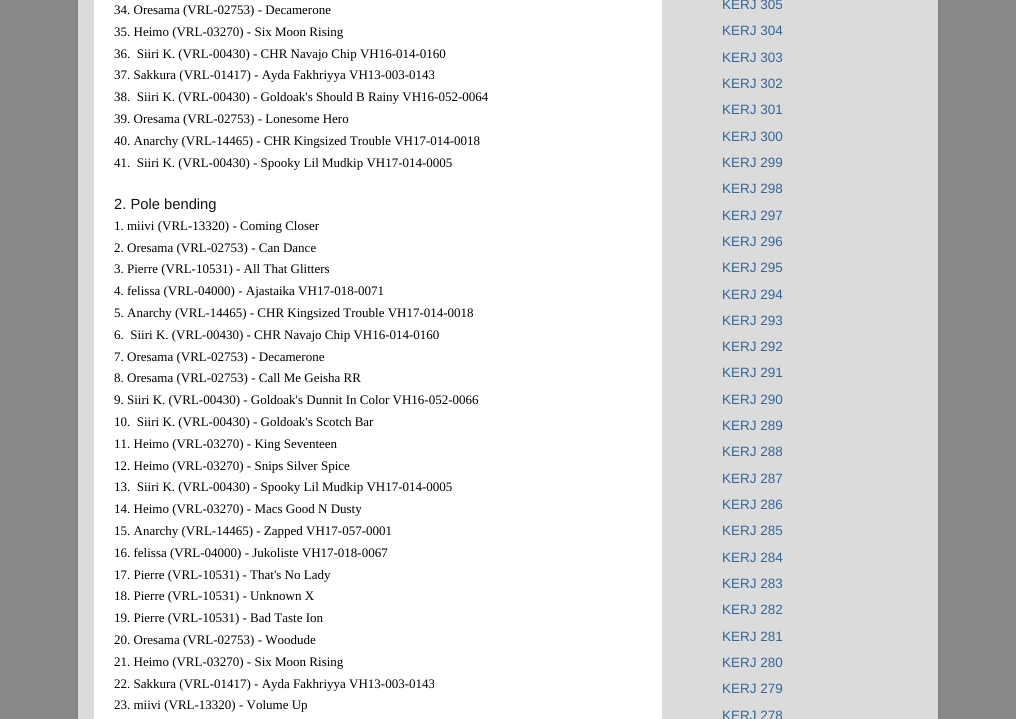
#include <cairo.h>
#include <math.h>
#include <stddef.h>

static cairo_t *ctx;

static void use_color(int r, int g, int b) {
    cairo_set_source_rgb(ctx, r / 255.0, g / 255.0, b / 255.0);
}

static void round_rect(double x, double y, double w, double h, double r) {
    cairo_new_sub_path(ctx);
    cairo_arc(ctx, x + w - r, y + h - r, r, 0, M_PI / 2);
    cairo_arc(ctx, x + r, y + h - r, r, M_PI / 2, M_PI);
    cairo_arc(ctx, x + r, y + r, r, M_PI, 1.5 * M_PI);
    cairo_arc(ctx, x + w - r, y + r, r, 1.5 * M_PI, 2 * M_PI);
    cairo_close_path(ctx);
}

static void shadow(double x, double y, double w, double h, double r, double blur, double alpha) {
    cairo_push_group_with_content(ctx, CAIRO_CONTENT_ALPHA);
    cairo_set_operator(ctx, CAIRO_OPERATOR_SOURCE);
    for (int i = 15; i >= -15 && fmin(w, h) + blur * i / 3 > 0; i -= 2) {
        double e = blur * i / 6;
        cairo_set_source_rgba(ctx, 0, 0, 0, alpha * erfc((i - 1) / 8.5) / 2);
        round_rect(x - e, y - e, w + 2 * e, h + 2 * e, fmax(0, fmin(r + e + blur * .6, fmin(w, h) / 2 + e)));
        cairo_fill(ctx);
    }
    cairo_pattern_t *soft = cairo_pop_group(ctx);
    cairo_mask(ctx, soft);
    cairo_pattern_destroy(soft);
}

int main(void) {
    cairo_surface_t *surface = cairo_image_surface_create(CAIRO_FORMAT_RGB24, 1016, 719);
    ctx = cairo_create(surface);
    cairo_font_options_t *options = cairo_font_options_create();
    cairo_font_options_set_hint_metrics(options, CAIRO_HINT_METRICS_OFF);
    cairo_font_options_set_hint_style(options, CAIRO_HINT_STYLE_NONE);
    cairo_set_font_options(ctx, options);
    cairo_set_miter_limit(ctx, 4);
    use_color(136, 136, 136);
    cairo_paint(ctx);
    use_color(0, 0, 0);
    shadow(78, -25, 860, 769, 20, 1.5, 0.15);
    use_color(219, 219, 219);
    cairo_rectangle(ctx, 78, 0, 860, 719);
    cairo_fill(ctx);
    use_color(255, 255, 255);
    cairo_rectangle(ctx, 94, 0, 568, 719);
    cairo_fill(ctx);
    cairo_select_font_face(ctx, "Liberation Serif", CAIRO_FONT_SLANT_NORMAL, CAIRO_FONT_WEIGHT_NORMAL);
    cairo_set_font_size(ctx, 13);
    use_color(0, 0, 0);
    cairo_move_to(ctx, 114, 14);
    cairo_show_text(ctx, "34. Oresama (VRL-02753) - Decamerone");
    cairo_move_to(ctx, 114, 36);
    cairo_show_text(ctx, "35. Heimo (VRL-03270) - Six Moon Rising");
    cairo_move_to(ctx, 114, 58);
    cairo_show_text(ctx, "36.  Siiri K. (VRL-00430) - CHR Navajo Chip VH16-014-0160");
    cairo_move_to(ctx, 114, 79);
    cairo_show_text(ctx, "37. Sakkura (VRL-01417) - Ayda Fakhriyya VH13-003-0143");
    cairo_move_to(ctx, 114, 101);
    cairo_show_text(ctx, "38.  Siiri K. (VRL-00430) - Goldoak's Should B Rainy VH16-052-0064");
    cairo_move_to(ctx, 114, 123);
    cairo_show_text(ctx, "39. Oresama (VRL-02753) - Lonesome Hero");
    cairo_move_to(ctx, 114, 145);
    cairo_show_text(ctx, "40. Anarchy (VRL-14465) - CHR Kingsized Trouble VH17-014-0018");
    cairo_move_to(ctx, 114, 167);
    cairo_show_text(ctx, "41.  Siiri K. (VRL-00430) - Spooky Lil Mudkip VH17-014-0005");
    cairo_select_font_face(ctx, "Liberation Sans", CAIRO_FONT_SLANT_NORMAL, CAIRO_FONT_WEIGHT_NORMAL);
    cairo_set_font_size(ctx, 14.75);
    use_color(17, 17, 17);
    cairo_move_to(ctx, 114, 209);
    cairo_show_text(ctx, "2. Pole bending");
    cairo_select_font_face(ctx, "Liberation Serif", CAIRO_FONT_SLANT_NORMAL, CAIRO_FONT_WEIGHT_NORMAL);
    cairo_set_font_size(ctx, 13);
    use_color(0, 0, 0);
    cairo_move_to(ctx, 114, 230);
    cairo_show_text(ctx, "1. miivi (VRL-13320) - Coming Closer");
    cairo_move_to(ctx, 114, 252);
    cairo_show_text(ctx, "2. Oresama (VRL-02753) - Can Dance");
    cairo_move_to(ctx, 114, 273);
    cairo_show_text(ctx, "3. Pierre (VRL-10531) - All That Glitters");
    cairo_move_to(ctx, 114, 295);
    cairo_show_text(ctx, "4. felissa (VRL-04000) - Ajastaika VH17-018-0071");
    cairo_move_to(ctx, 114, 317);
    cairo_show_text(ctx, "5. Anarchy (VRL-14465) - CHR Kingsized Trouble VH17-014-0018");
    cairo_move_to(ctx, 114, 339);
    cairo_show_text(ctx, "6.  Siiri K. (VRL-00430) - CHR Navajo Chip VH16-014-0160");
    cairo_move_to(ctx, 114, 361);
    cairo_show_text(ctx, "7. Oresama (VRL-02753) - Decamerone");
    cairo_move_to(ctx, 114, 382);
    cairo_show_text(ctx, "8. Oresama (VRL-02753) - Call Me Geisha RR");
    cairo_move_to(ctx, 114, 404);
    cairo_show_text(ctx, "9. Siiri K. (VRL-00430) - Goldoak's Dunnit In Color VH16-052-0066");
    cairo_move_to(ctx, 114, 426);
    cairo_show_text(ctx, "10.  Siiri K. (VRL-00430) - Goldoak's Scotch Bar");
    cairo_move_to(ctx, 114, 448);
    cairo_show_text(ctx, "11. Heimo (VRL-03270) - King Seventeen");
    cairo_move_to(ctx, 114, 470);
    cairo_show_text(ctx, "12. Heimo (VRL-03270) - Snips Silver Spice");
    cairo_move_to(ctx, 114, 491);
    cairo_show_text(ctx, "13.  Siiri K. (VRL-00430) - Spooky Lil Mudkip VH17-014-0005");
    cairo_move_to(ctx, 114, 513);
    cairo_show_text(ctx, "14. Heimo (VRL-03270) - Macs Good N Dusty");
    cairo_move_to(ctx, 114, 535);
    cairo_show_text(ctx, "15. Anarchy (VRL-14465) - Zapped VH17-057-0001");
    cairo_move_to(ctx, 114, 557);
    cairo_show_text(ctx, "16. felissa (VRL-04000) - Jukoliste VH17-018-0067");
    cairo_move_to(ctx, 114, 579);
    cairo_show_text(ctx, "17. Pierre (VRL-10531) - That's No Lady");
    cairo_move_to(ctx, 114, 600);
    cairo_show_text(ctx, "18. Pierre (VRL-10531) - Unknown X");
    cairo_move_to(ctx, 114, 622);
    cairo_show_text(ctx, "19. Pierre (VRL-10531) - Bad Taste Ion");
    cairo_move_to(ctx, 114, 644);
    cairo_show_text(ctx, "20. Oresama (VRL-02753) - Woodude");
    cairo_move_to(ctx, 114, 666);
    cairo_show_text(ctx, "21. Heimo (VRL-03270) - Six Moon Rising");
    cairo_move_to(ctx, 114, 688);
    cairo_show_text(ctx, "22. Sakkura (VRL-01417) - Ayda Fakhriyya VH13-003-0143");
    cairo_move_to(ctx, 114, 709);
    cairo_show_text(ctx, "23. miivi (VRL-13320) - Volume Up");
    cairo_select_font_face(ctx, "Liberation Sans", CAIRO_FONT_SLANT_NORMAL, CAIRO_FONT_WEIGHT_NORMAL);
    cairo_set_font_size(ctx, 13.5);
    use_color(51, 102, 153);
    cairo_move_to(ctx, 722, 9);
    cairo_show_text(ctx, "KERJ 305");
    cairo_move_to(ctx, 722, 35);
    cairo_show_text(ctx, "KERJ 304");
    cairo_move_to(ctx, 722, 62);
    cairo_show_text(ctx, "KERJ 303");
    cairo_move_to(ctx, 722, 88);
    cairo_show_text(ctx, "KERJ 302");
    cairo_move_to(ctx, 722, 114);
    cairo_show_text(ctx, "KERJ 301");
    cairo_move_to(ctx, 722, 141);
    cairo_show_text(ctx, "KERJ 300");
    cairo_move_to(ctx, 722, 167);
    cairo_show_text(ctx, "KERJ 299");
    cairo_move_to(ctx, 722, 193);
    cairo_show_text(ctx, "KERJ 298");
    cairo_move_to(ctx, 722, 220);
    cairo_show_text(ctx, "KERJ 297");
    cairo_move_to(ctx, 722, 246);
    cairo_show_text(ctx, "KERJ 296");
    cairo_move_to(ctx, 722, 272);
    cairo_show_text(ctx, "KERJ 295");
    cairo_move_to(ctx, 722, 299);
    cairo_show_text(ctx, "KERJ 294");
    cairo_move_to(ctx, 722, 325);
    cairo_show_text(ctx, "KERJ 293");
    cairo_move_to(ctx, 722, 351);
    cairo_show_text(ctx, "KERJ 292");
    cairo_move_to(ctx, 722, 377);
    cairo_show_text(ctx, "KERJ 291");
    cairo_move_to(ctx, 722, 404);
    cairo_show_text(ctx, "KERJ 290");
    cairo_move_to(ctx, 722, 430);
    cairo_show_text(ctx, "KERJ 289");
    cairo_move_to(ctx, 722, 456);
    cairo_show_text(ctx, "KERJ 288");
    cairo_move_to(ctx, 722, 483);
    cairo_show_text(ctx, "KERJ 287");
    cairo_move_to(ctx, 722, 509);
    cairo_show_text(ctx, "KERJ 286");
    cairo_move_to(ctx, 722, 535);
    cairo_show_text(ctx, "KERJ 285");
    cairo_move_to(ctx, 722, 562);
    cairo_show_text(ctx, "KERJ 284");
    cairo_move_to(ctx, 722, 588);
    cairo_show_text(ctx, "KERJ 283");
    cairo_move_to(ctx, 722, 614);
    cairo_show_text(ctx, "KERJ 282");
    cairo_move_to(ctx, 722, 641);
    cairo_show_text(ctx, "KERJ 281");
    cairo_move_to(ctx, 722, 667);
    cairo_show_text(ctx, "KERJ 280");
    cairo_move_to(ctx, 722, 693);
    cairo_show_text(ctx, "KERJ 279");
    cairo_move_to(ctx, 722, 720);
    cairo_show_text(ctx, "KERJ 278");
    cairo_surface_write_to_png(surface, "result.png");
    cairo_font_options_destroy(options);
    cairo_destroy(ctx);
    cairo_surface_destroy(surface);
    return 0;
}
